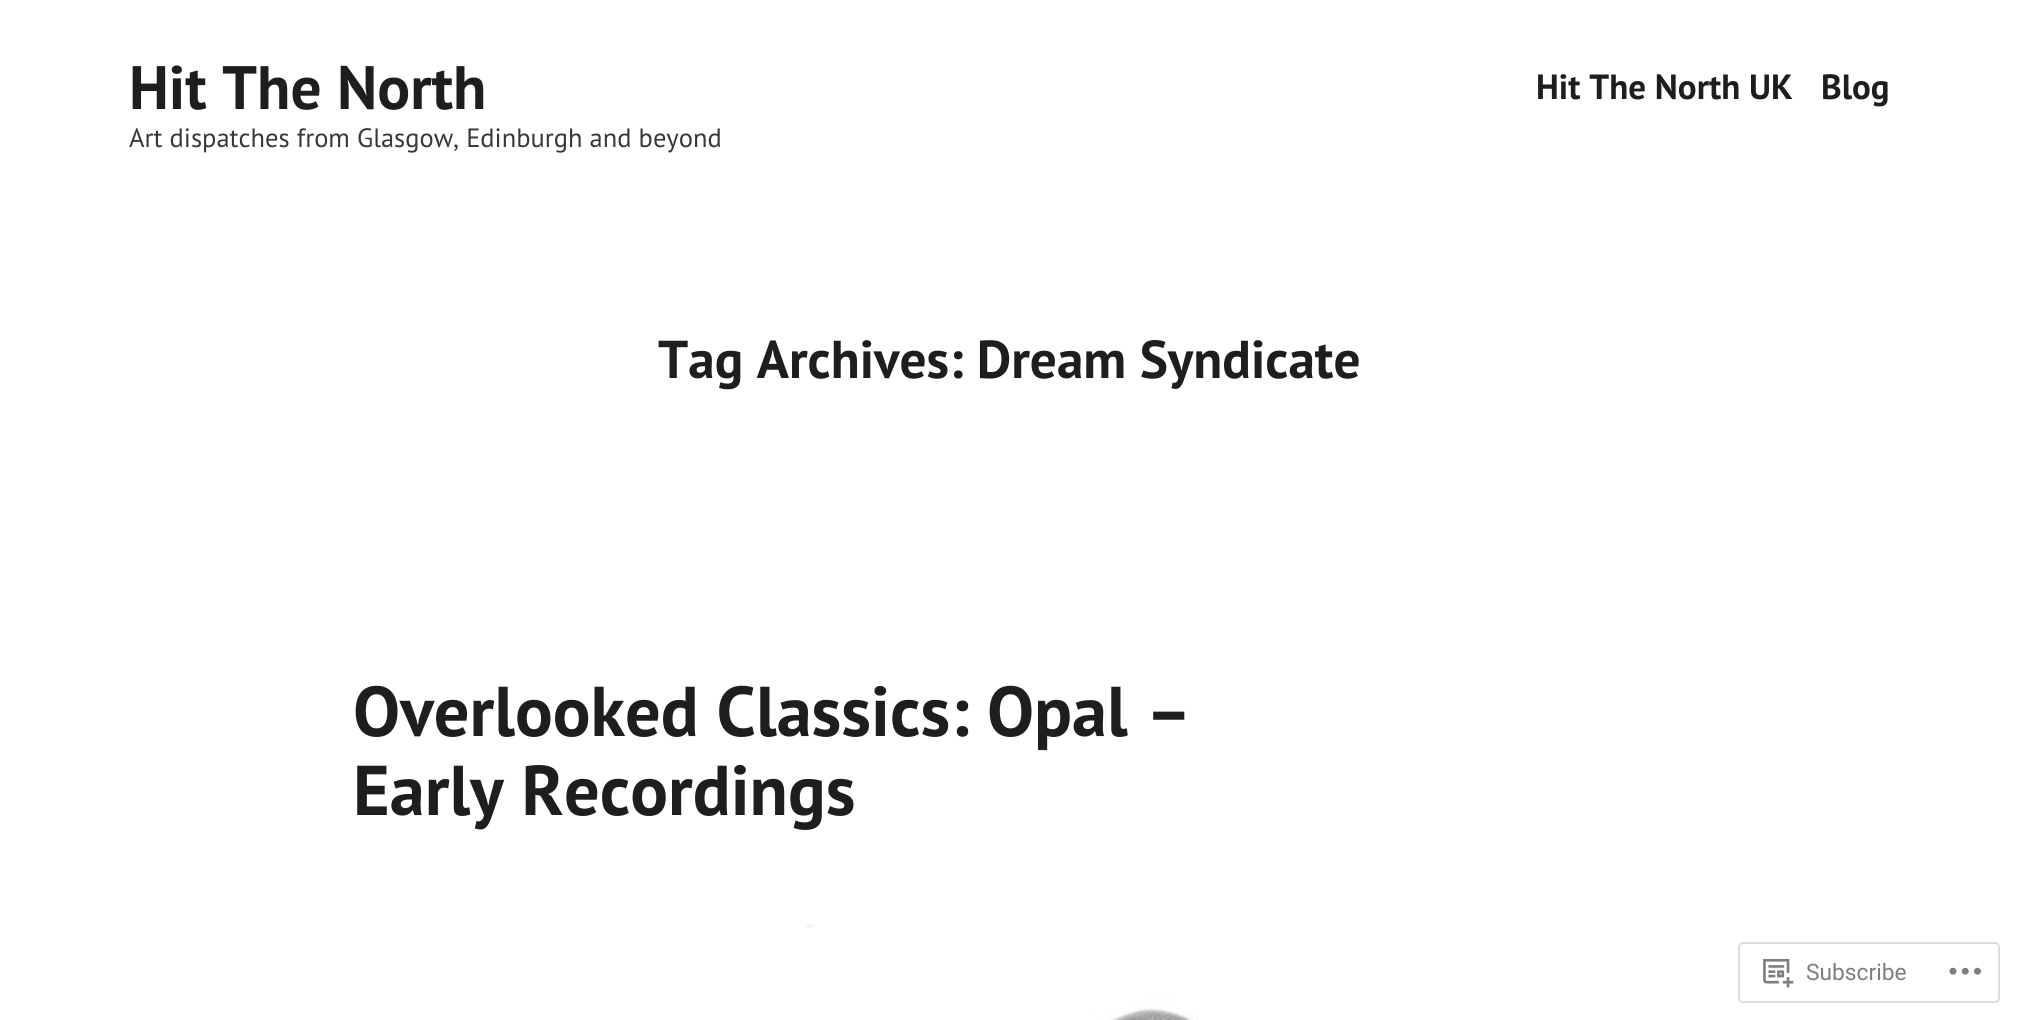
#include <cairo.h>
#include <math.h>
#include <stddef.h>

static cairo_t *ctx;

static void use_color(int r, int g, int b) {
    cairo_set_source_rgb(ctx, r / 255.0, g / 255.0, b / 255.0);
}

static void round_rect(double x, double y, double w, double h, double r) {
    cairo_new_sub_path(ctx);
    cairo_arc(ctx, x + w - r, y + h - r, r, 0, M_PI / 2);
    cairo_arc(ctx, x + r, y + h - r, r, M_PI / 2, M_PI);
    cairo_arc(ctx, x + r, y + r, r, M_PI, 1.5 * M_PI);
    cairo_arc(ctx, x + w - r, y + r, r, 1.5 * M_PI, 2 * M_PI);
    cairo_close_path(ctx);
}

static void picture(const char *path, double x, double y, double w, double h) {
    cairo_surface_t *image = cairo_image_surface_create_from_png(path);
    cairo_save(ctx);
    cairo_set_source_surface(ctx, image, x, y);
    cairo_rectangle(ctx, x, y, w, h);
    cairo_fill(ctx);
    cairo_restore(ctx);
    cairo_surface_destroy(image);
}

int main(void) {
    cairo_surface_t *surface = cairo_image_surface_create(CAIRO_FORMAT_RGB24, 2017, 1020);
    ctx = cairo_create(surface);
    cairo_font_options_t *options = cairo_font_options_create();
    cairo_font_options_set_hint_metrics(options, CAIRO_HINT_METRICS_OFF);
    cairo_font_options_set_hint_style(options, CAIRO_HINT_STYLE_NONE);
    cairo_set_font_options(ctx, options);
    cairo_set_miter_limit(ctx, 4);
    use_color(255, 255, 255);
    cairo_paint(ctx);
    cairo_select_font_face(ctx, "PT Sans", CAIRO_FONT_SLANT_NORMAL, CAIRO_FONT_WEIGHT_BOLD);
    cairo_set_font_size(ctx, 61.25);
    use_color(29, 30, 30);
    cairo_move_to(ctx, 129, 109);
    cairo_show_text(ctx, "Hit The North");
    cairo_set_font_size(ctx, 35);
    cairo_move_to(ctx, 1536, 99);
    cairo_show_text(ctx, "Hit The North UK");
    cairo_move_to(ctx, 1821, 99);
    cairo_show_text(ctx, "Blog");
    cairo_select_font_face(ctx, "PT Sans", CAIRO_FONT_SLANT_NORMAL, CAIRO_FONT_WEIGHT_NORMAL);
    cairo_set_font_size(ctx, 26.5);
    use_color(54, 57, 57);
    cairo_move_to(ctx, 129, 147);
    cairo_show_text(ctx, "Art dispatches from Glasgow, Edinburgh and beyond");
    cairo_select_font_face(ctx, "PT Sans", CAIRO_FONT_SLANT_NORMAL, CAIRO_FONT_WEIGHT_BOLD);
    cairo_set_font_size(ctx, 53.25);
    use_color(29, 30, 30);
    cairo_move_to(ctx, 658, 378);
    cairo_show_text(ctx, "Tag Archives: Dream Syndicate");
    cairo_set_font_size(ctx, 70.4);
    cairo_move_to(ctx, 353, 736);
    cairo_show_text(ctx, "Overlooked Classics: Opal –");
    cairo_move_to(ctx, 353, 815);
    cairo_show_text(ctx, "Early Recordings");
    picture("img1.png", 806, 924, 393, 96);
    round_rect(1739, 943, 260, 59, 4);
    use_color(221, 221, 223);
    cairo_stroke(ctx);
    picture("img2.png", 1763, 959, 31, 29);
    cairo_select_font_face(ctx, "Roboto", CAIRO_FONT_SLANT_NORMAL, CAIRO_FONT_WEIGHT_NORMAL);
    cairo_set_font_size(ctx, 22.75);
    use_color(123, 127, 133);
    cairo_move_to(ctx, 1806, 980);
    cairo_show_text(ctx, "Subscribe");
    picture("img3.png", 1949, 967, 32, 8);
    cairo_surface_write_to_png(surface, "result.png");
    cairo_font_options_destroy(options);
    cairo_destroy(ctx);
    cairo_surface_destroy(surface);
    return 0;
}
